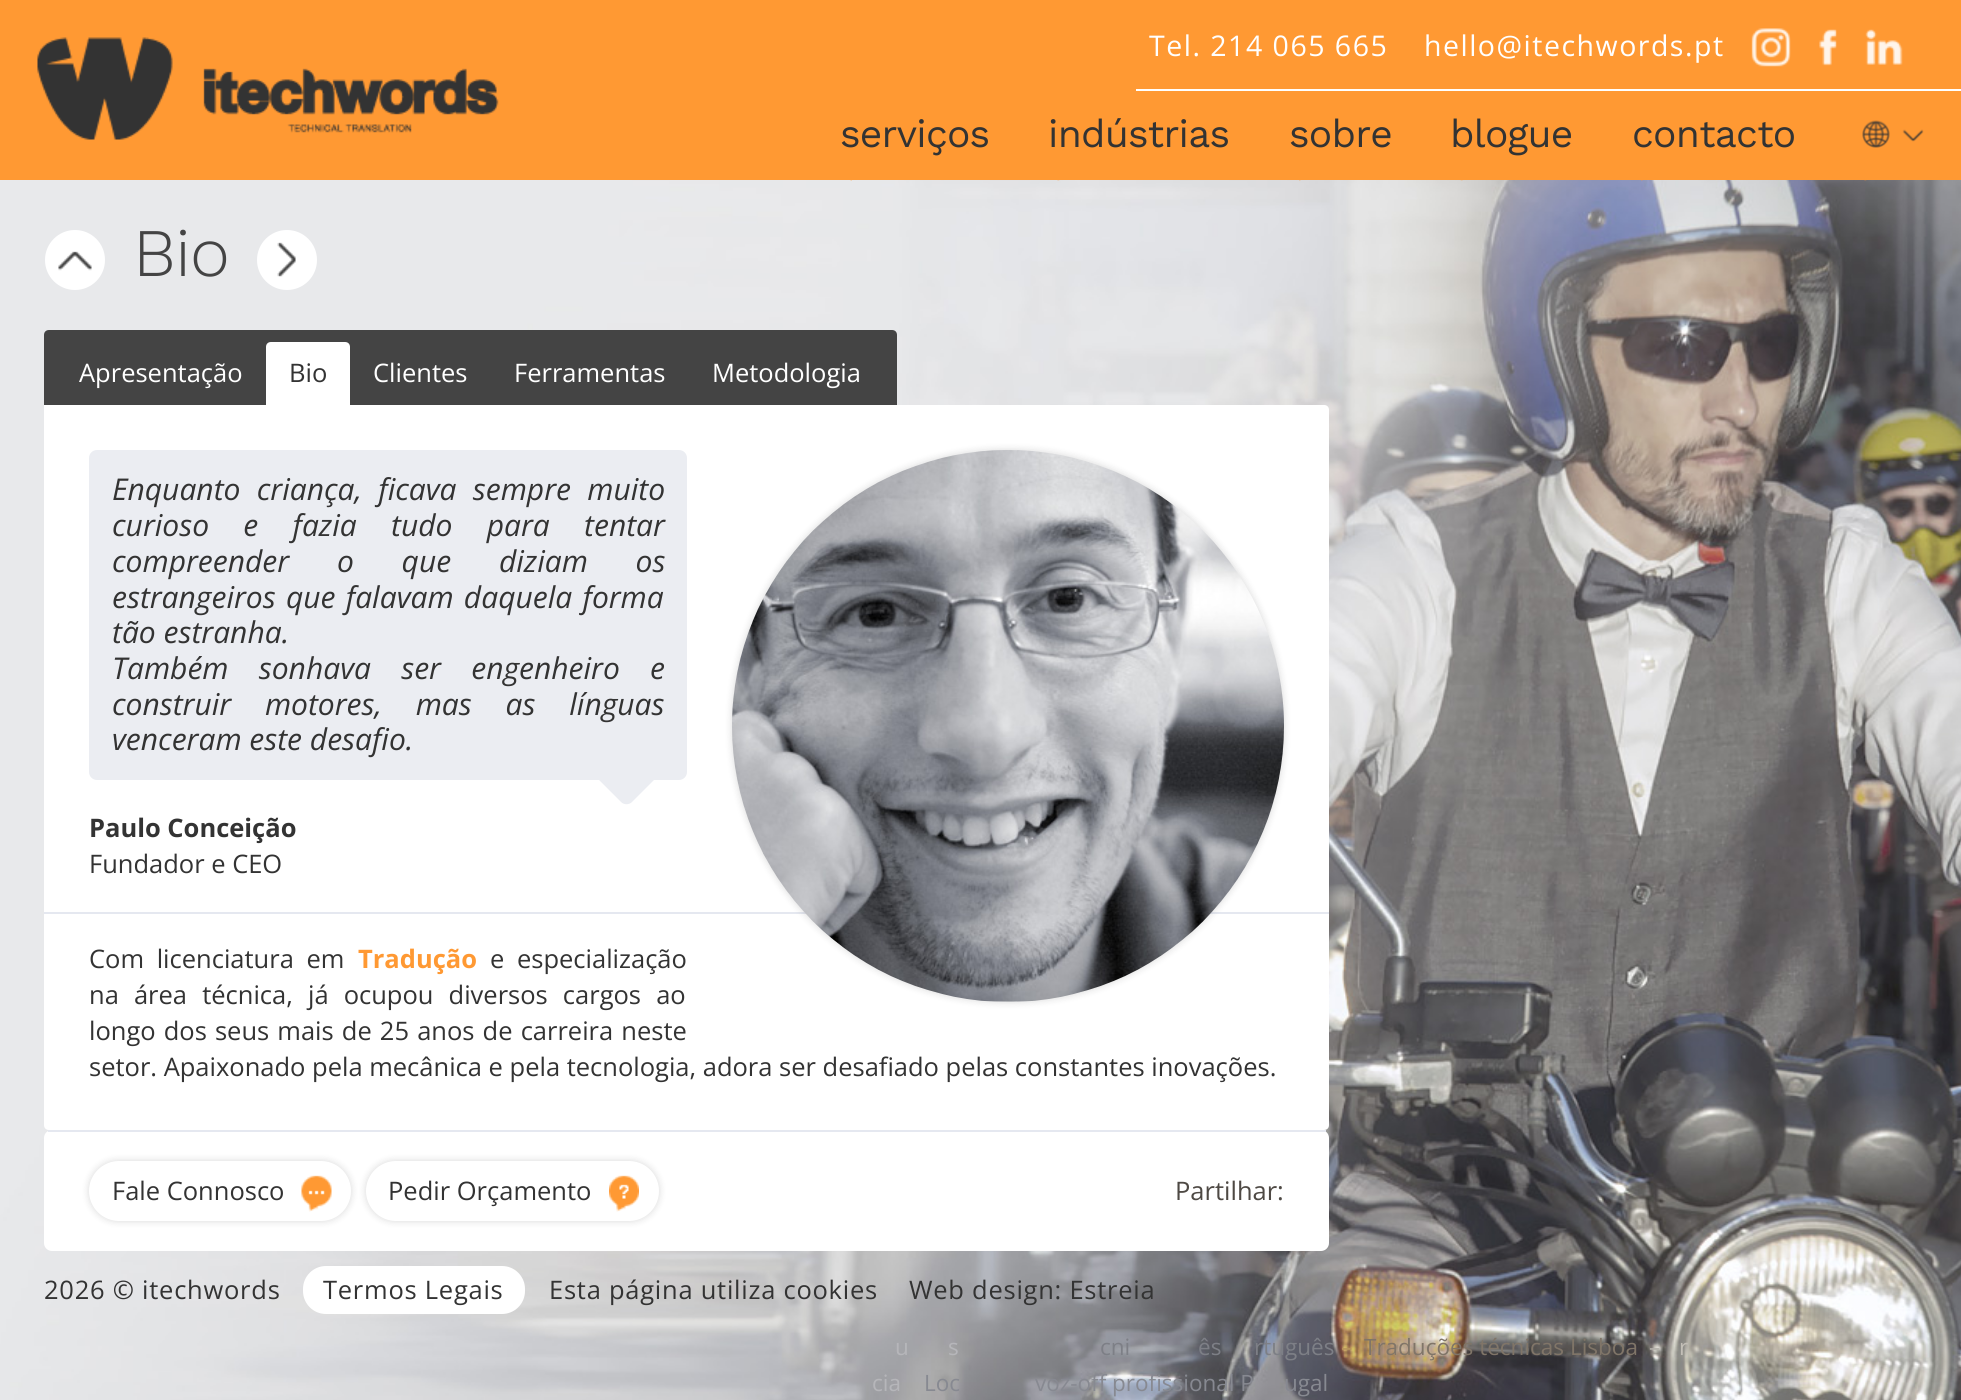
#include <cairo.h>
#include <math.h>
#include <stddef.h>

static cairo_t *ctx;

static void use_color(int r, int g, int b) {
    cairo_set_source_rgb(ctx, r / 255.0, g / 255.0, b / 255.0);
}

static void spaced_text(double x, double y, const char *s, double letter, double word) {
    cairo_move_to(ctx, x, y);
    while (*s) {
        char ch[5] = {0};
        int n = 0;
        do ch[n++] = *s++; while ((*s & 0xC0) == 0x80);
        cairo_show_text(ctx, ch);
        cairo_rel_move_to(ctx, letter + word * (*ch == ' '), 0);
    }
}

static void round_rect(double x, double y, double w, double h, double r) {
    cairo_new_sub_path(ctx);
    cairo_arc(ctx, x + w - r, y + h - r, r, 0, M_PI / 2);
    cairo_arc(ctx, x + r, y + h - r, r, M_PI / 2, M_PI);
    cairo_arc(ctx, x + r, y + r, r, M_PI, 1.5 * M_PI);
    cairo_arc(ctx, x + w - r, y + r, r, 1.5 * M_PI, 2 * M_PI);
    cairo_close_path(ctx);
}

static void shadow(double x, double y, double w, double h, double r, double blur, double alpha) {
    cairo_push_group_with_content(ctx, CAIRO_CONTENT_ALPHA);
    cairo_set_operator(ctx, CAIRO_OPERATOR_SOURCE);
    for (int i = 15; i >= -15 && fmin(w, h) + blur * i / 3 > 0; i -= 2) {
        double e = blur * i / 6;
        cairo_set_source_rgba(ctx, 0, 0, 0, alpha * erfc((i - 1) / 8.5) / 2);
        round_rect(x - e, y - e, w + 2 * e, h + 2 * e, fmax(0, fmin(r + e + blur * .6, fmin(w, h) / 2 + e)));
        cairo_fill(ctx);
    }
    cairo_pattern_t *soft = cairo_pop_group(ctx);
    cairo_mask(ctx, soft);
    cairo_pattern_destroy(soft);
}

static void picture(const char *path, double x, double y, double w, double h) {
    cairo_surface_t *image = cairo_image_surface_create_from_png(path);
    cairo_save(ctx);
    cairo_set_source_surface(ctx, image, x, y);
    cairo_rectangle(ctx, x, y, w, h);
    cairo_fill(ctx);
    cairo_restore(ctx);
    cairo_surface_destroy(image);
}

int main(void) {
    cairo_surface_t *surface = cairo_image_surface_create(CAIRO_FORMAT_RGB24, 1961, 1400);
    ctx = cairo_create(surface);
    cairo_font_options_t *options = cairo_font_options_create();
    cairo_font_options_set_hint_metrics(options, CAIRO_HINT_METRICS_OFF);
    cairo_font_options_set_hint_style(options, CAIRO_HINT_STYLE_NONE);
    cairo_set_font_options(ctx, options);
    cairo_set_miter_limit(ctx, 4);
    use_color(255, 255, 255);
    cairo_paint(ctx);
    use_color(255, 153, 51);
    cairo_rectangle(ctx, 0, 0, 1961, 180);
    cairo_fill(ctx);
    picture("img1.png", 37, 37, 462, 103);
    use_color(255, 255, 255);
    cairo_rectangle(ctx, 1136, 89, 825, 2);
    cairo_fill(ctx);
    cairo_select_font_face(ctx, "Open Sans", CAIRO_FONT_SLANT_NORMAL, CAIRO_FONT_WEIGHT_NORMAL);
    cairo_set_font_size(ctx, 28.5);
    spaced_text(1149, 56, "Tel. 214 065 665", 1.5, 0);
    spaced_text(1424, 56, "hello@itechwords.pt", 1.5, 0);
    picture("img2.png", 1751, 28, 40, 39);
    picture("img3.png", 1819, 29, 18, 37);
    picture("img4.png", 1865, 29, 38, 36);
    picture("img11.png", 0, 180, 1961, 1220);
    picture("img5.png", 850, 180, 2, 1);
    cairo_select_font_face(ctx, "Work Sans", CAIRO_FONT_SLANT_NORMAL, CAIRO_FONT_WEIGHT_NORMAL);
    cairo_set_font_size(ctx, 39);
    use_color(51, 51, 51);
    spaced_text(840, 147, "serviços", -0.75, 0);
    picture("img6.png", 1057, 180, 3, 1);
    spaced_text(1048, 147, "indústrias", -0.75, 0);
    picture("img7.png", 1299, 180, 2, 1);
    spaced_text(1289, 147, "sobre", -0.75, 0);
    picture("img8.png", 1460, 180, 3, 1);
    spaced_text(1450, 147, "blogue", -0.75, 0);
    picture("img9.png", 1641, 180, 2, 1);
    spaced_text(1632, 147, "contacto", -0.75, 0);
    picture("img10.png", 1862, 120, 62, 61);
    use_color(255, 255, 255);
    cairo_arc(ctx, 75, 260, 30, 0, 2 * M_PI);
    cairo_fill(ctx);
    picture("img12.png", 58, 251, 34, 20);
    cairo_select_font_face(ctx, "Work Sans Light", CAIRO_FONT_SLANT_NORMAL, CAIRO_FONT_WEIGHT_NORMAL);
    cairo_set_font_size(ctx, 68);
    use_color(68, 68, 68);
    spaced_text(133, 276, "Bio", -0.75, 0);
    use_color(255, 255, 255);
    cairo_new_path(ctx);
    cairo_arc(ctx, 287, 260, 30, 0, 2 * M_PI);
    cairo_fill(ctx);
    picture("img13.png", 277, 242, 19, 35);
    use_color(68, 68, 68);
    cairo_new_path(ctx);
    cairo_move_to(ctx, 49, 330);
    cairo_line_to(ctx, 892, 330);
    cairo_curve_to(ctx, 895, 330, 897, 332, 897, 335);
    cairo_line_to(ctx, 897, 405);
    cairo_line_to(ctx, 44, 405);
    cairo_line_to(ctx, 44, 335);
    cairo_curve_to(ctx, 44, 332, 46, 330, 49, 330);
    cairo_close_path(ctx);
    cairo_fill(ctx);
    cairo_select_font_face(ctx, "Open Sans", CAIRO_FONT_SLANT_NORMAL, CAIRO_FONT_WEIGHT_NORMAL);
    cairo_set_font_size(ctx, 25.5);
    use_color(255, 255, 255);
    cairo_move_to(ctx, 79, 382);
    cairo_show_text(ctx, "Apresentação");
    cairo_new_path(ctx);
    cairo_move_to(ctx, 271, 342);
    cairo_line_to(ctx, 345, 342);
    cairo_curve_to(ctx, 348, 342, 350, 344, 350, 347);
    cairo_line_to(ctx, 350, 405);
    cairo_line_to(ctx, 266, 405);
    cairo_line_to(ctx, 266, 347);
    cairo_curve_to(ctx, 266, 344, 268, 342, 271, 342);
    cairo_close_path(ctx);
    cairo_fill(ctx);
    use_color(51, 51, 51);
    cairo_move_to(ctx, 289, 382);
    cairo_show_text(ctx, "Bio");
    use_color(255, 255, 255);
    cairo_move_to(ctx, 373, 382);
    cairo_show_text(ctx, "Clientes");
    cairo_move_to(ctx, 514, 382);
    cairo_show_text(ctx, "Ferramentas");
    cairo_move_to(ctx, 712, 382);
    cairo_show_text(ctx, "Metodologia");
    cairo_new_path(ctx);
    cairo_move_to(ctx, 44, 405);
    cairo_line_to(ctx, 1324, 405);
    cairo_curve_to(ctx, 1327, 405, 1329, 407, 1329, 410);
    cairo_line_to(ctx, 1329, 1125);
    cairo_curve_to(ctx, 1329, 1128, 1327, 1130, 1324, 1130);
    cairo_line_to(ctx, 49, 1130);
    cairo_curve_to(ctx, 46, 1130, 44, 1128, 44, 1125);
    cairo_close_path(ctx);
    cairo_fill(ctx);
    use_color(235, 237, 242);
    round_rect(89, 450, 598, 330, 8);
    cairo_fill(ctx);
    cairo_select_font_face(ctx, "Open Sans", CAIRO_FONT_SLANT_ITALIC, CAIRO_FONT_WEIGHT_NORMAL);
    cairo_set_font_size(ctx, 30);
    use_color(51, 51, 51);
    spaced_text(112, 500, "Enquanto criança, ficava sempre muito", 0, 8.5);
    spaced_text(112, 536, "curioso e fazia tudo para tentar", 0, 26.5);
    spaced_text(112, 572, "compreender o que diziam os", 0, 40);
    spaced_text(112, 608, "estrangeiros que falavam daquela forma", 0, 2.5);
    cairo_move_to(ctx, 112, 643);
    cairo_show_text(ctx, "tão estranha.");
    spaced_text(112, 679, "Também sonhava ser engenheiro e", 0, 22.5);
    spaced_text(112, 715, "construir motores, mas as línguas", 0, 26);
    cairo_move_to(ctx, 112, 750);
    cairo_show_text(ctx, "venceram este desafio.");
    cairo_save(ctx);
    cairo_rectangle(ctx, 597, 777, 60, 30);
    cairo_clip(ctx);
    use_color(235, 237, 242);
    cairo_new_path(ctx);
    cairo_move_to(ctx, 632, 707);
    cairo_line_to(ctx, 674, 749);
    cairo_curve_to(ctx, 677, 752, 677, 757, 674, 760);
    cairo_line_to(ctx, 632, 802);
    cairo_curve_to(ctx, 629, 805, 624, 805, 621, 802);
    cairo_line_to(ctx, 579, 760);
    cairo_curve_to(ctx, 576, 757, 576, 752, 579, 749);
    cairo_line_to(ctx, 621, 707);
    cairo_curve_to(ctx, 624, 704, 629, 704, 632, 707);
    cairo_close_path(ctx);
    cairo_fill(ctx);
    cairo_restore(ctx);
    use_color(229, 232, 240);
    cairo_rectangle(ctx, 44, 912, 1285, 2);
    cairo_fill(ctx);
    use_color(0, 0, 0);
    shadow(732, 450, 552, 552, 276, 4, 0.15);
    picture("img14.png", 732, 450, 552, 552);
    cairo_select_font_face(ctx, "Open Sans", CAIRO_FONT_SLANT_NORMAL, CAIRO_FONT_WEIGHT_BOLD);
    cairo_set_font_size(ctx, 25.5);
    use_color(51, 51, 51);
    cairo_move_to(ctx, 89, 837);
    cairo_show_text(ctx, "Paulo Conceição");
    cairo_select_font_face(ctx, "Open Sans", CAIRO_FONT_SLANT_NORMAL, CAIRO_FONT_WEIGHT_NORMAL);
    cairo_move_to(ctx, 89, 873);
    cairo_show_text(ctx, "Fundador e CEO");
    spaced_text(89, 968, "Com licenciatura em", 0, 6);
    cairo_select_font_face(ctx, "Open Sans", CAIRO_FONT_SLANT_NORMAL, CAIRO_FONT_WEIGHT_BOLD);
    use_color(255, 153, 51);
    cairo_move_to(ctx, 358, 968);
    cairo_show_text(ctx, "Tradução");
    cairo_select_font_face(ctx, "Open Sans", CAIRO_FONT_SLANT_NORMAL, CAIRO_FONT_WEIGHT_NORMAL);
    use_color(51, 51, 51);
    spaced_text(490, 968, "e especialização", 0, 6);
    spaced_text(89, 1004, "na área técnica, já ocupou diversos cargos ao", 0, 8.5);
    spaced_text(89, 1040, "longo dos seus mais de 25 anos de carreira neste", 0, 1.5);
    cairo_move_to(ctx, 89, 1076);
    cairo_show_text(ctx, "setor. Apaixonado pela mecânica e pela tecnologia, adora ser desafiado pelas constantes inovações.");
    use_color(255, 255, 255);
    round_rect(44, 1130, 1285, 121, 8);
    cairo_fill(ctx);
    use_color(229, 232, 240);
    cairo_rectangle(ctx, 48, 1130, 1278, 2);
    cairo_fill(ctx);
    use_color(0, 0, 0);
    shadow(89, 1161, 262, 60, 30, 4, 0.15);
    use_color(255, 255, 255);
    round_rect(89, 1161, 262, 60, 30);
    cairo_fill(ctx);
    picture("img15.png", 301, 1175, 31, 37);
    use_color(51, 51, 51);
    cairo_move_to(ctx, 112, 1200);
    cairo_show_text(ctx, "Fale Connosco");
    use_color(0, 0, 0);
    shadow(366, 1161, 293, 60, 30, 4, 0.15);
    use_color(255, 255, 255);
    round_rect(366, 1161, 293, 60, 30);
    cairo_fill(ctx);
    picture("img16.png", 609, 1175, 30, 37);
    use_color(51, 51, 51);
    cairo_move_to(ctx, 388, 1200);
    cairo_show_text(ctx, "Pedir Orçamento");
    use_color(78, 73, 68);
    cairo_move_to(ctx, 1175, 1200);
    cairo_show_text(ctx, "Partilhar:");
    use_color(51, 51, 51);
    spaced_text(44, 1299, "2026 © itechwords", 0.75, 0);
    use_color(255, 255, 255);
    round_rect(303, 1266, 222, 48, 23);
    cairo_fill(ctx);
    use_color(51, 51, 51);
    spaced_text(323, 1299, "Termos Legais", 0.75, 0);
    spaced_text(549, 1299, "Esta página utiliza cookies", 0.75, 0);
    spaced_text(909, 1299, "Web design: Estreia", 0.75, 0);
    cairo_set_font_size(ctx, 22.5);
    use_color(182, 182, 186);
    cairo_move_to(ctx, 895, 1355);
    cairo_show_text(ctx, "u");
    cairo_move_to(ctx, 948, 1355);
    cairo_show_text(ctx, "s");
    use_color(125, 127, 134);
    cairo_move_to(ctx, 1100, 1355);
    cairo_show_text(ctx, "cni");
    cairo_move_to(ctx, 1198, 1355);
    cairo_show_text(ctx, "ês");
    cairo_move_to(ctx, 1254, 1355);
    cairo_show_text(ctx, "rtuguês");
    use_color(182, 147, 91);
    cairo_move_to(ctx, 1341, 1355);
    cairo_show_text(ctx, "–");
    use_color(128, 117, 104);
    cairo_move_to(ctx, 1364, 1355);
    cairo_show_text(ctx, "Traduções técnicas Lisboa");
    use_color(178, 175, 169);
    cairo_move_to(ctx, 1649, 1355);
    cairo_show_text(ctx, "–");
    use_color(195, 191, 183);
    cairo_move_to(ctx, 1679, 1355);
    cairo_show_text(ctx, "r");
    use_color(182, 182, 186);
    cairo_move_to(ctx, 872, 1391);
    cairo_show_text(ctx, "cia");
    use_color(135, 137, 145);
    cairo_move_to(ctx, 924, 1391);
    cairo_show_text(ctx, "Loc");
    cairo_move_to(ctx, 1035, 1391);
    cairo_show_text(ctx, "voz-off profissional P");
    cairo_move_to(ctx, 1284, 1391);
    cairo_show_text(ctx, "ugal");
    cairo_surface_write_to_png(surface, "result.png");
    cairo_font_options_destroy(options);
    cairo_destroy(ctx);
    cairo_surface_destroy(surface);
    return 0;
}
